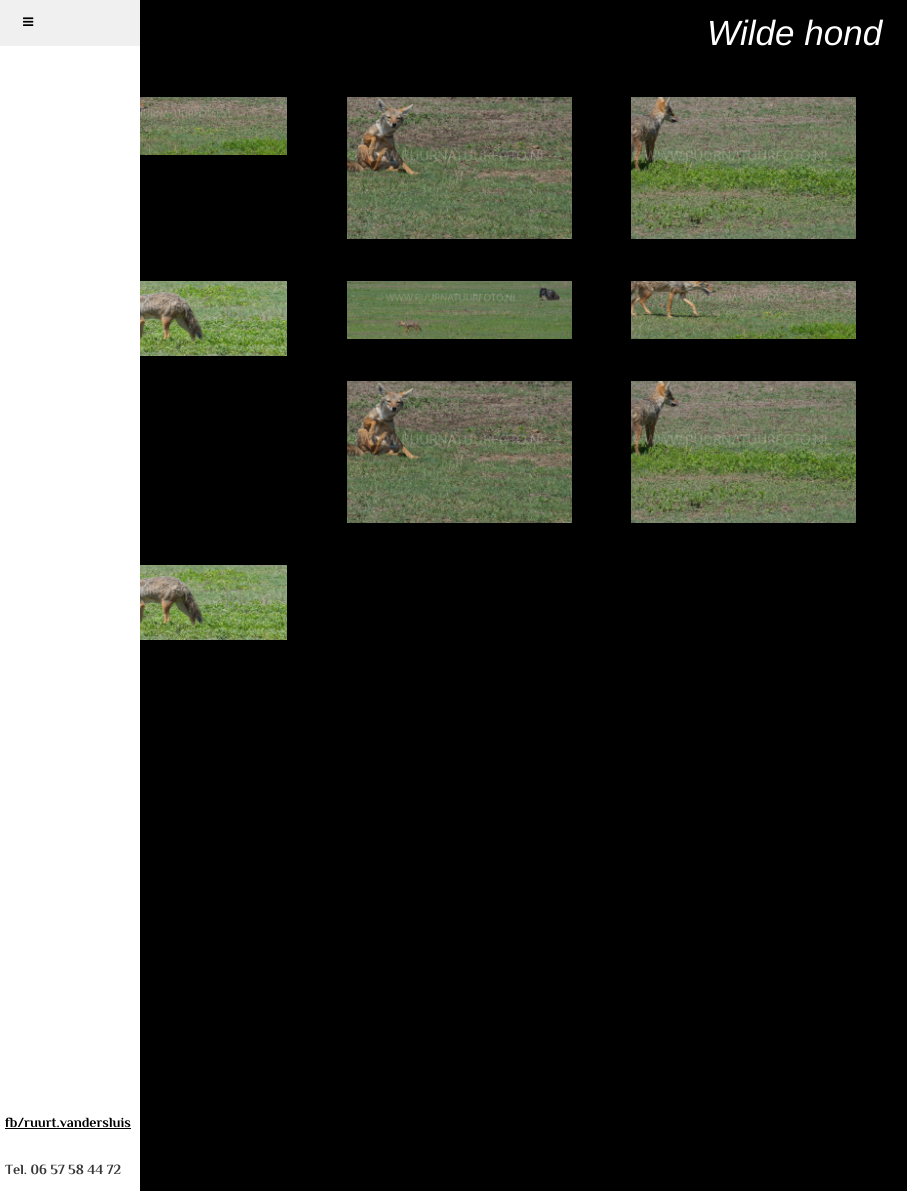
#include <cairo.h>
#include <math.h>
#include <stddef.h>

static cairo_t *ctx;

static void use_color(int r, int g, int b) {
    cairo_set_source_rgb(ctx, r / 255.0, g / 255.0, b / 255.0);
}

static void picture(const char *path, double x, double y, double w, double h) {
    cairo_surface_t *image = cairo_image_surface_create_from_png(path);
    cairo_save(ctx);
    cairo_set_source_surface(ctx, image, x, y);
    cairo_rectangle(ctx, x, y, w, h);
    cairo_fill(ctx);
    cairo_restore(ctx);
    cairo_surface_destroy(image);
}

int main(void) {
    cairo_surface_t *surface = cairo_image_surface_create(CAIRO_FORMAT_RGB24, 907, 1191);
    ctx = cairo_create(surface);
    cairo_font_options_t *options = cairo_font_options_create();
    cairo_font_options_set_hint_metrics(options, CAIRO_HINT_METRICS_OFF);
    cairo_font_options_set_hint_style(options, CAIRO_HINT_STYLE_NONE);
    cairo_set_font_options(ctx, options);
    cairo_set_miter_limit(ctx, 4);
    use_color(0, 0, 0);
    cairo_paint(ctx);
    cairo_select_font_face(ctx, "Liberation Sans", CAIRO_FONT_SLANT_ITALIC, CAIRO_FONT_WEIGHT_NORMAL);
    cairo_set_font_size(ctx, 35);
    use_color(255, 255, 255);
    cairo_move_to(ctx, 707, 45);
    cairo_show_text(ctx, "Wilde hond");
    picture("img1.png", 140, 97, 147, 58);
    picture("img2.png", 347, 97, 225, 142);
    picture("img3.png", 631, 97, 225, 142);
    picture("img4.png", 140, 281, 147, 75);
    picture("img5.png", 347, 281, 225, 58);
    picture("img6.png", 631, 281, 225, 58);
    picture("img2.png", 347, 381, 225, 142);
    picture("img3.png", 631, 381, 225, 142);
    picture("img7.png", 140, 565, 147, 75);
    cairo_rectangle(ctx, 0, 46, 140, 1145);
    cairo_fill(ctx);
    use_color(240, 240, 240);
    cairo_rectangle(ctx, 0, 0, 140, 46);
    cairo_fill(ctx);
    picture("img8.png", 23, 17, 11, 9);
    cairo_select_font_face(ctx, "Philosopher", CAIRO_FONT_SLANT_NORMAL, CAIRO_FONT_WEIGHT_BOLD);
    cairo_set_font_size(ctx, 14);
    use_color(0, 0, 0);
    cairo_move_to(ctx, 5, 1127);
    cairo_show_text(ctx, "fb/ruurt.vandersluis");
    cairo_rectangle(ctx, 5, 1128, 126, 1);
    cairo_fill(ctx);
    use_color(55, 55, 55);
    cairo_move_to(ctx, 5, 1174);
    cairo_show_text(ctx, "Tel. 06 57 58 44 72");
    cairo_surface_write_to_png(surface, "result.png");
    cairo_font_options_destroy(options);
    cairo_destroy(ctx);
    cairo_surface_destroy(surface);
    return 0;
}
